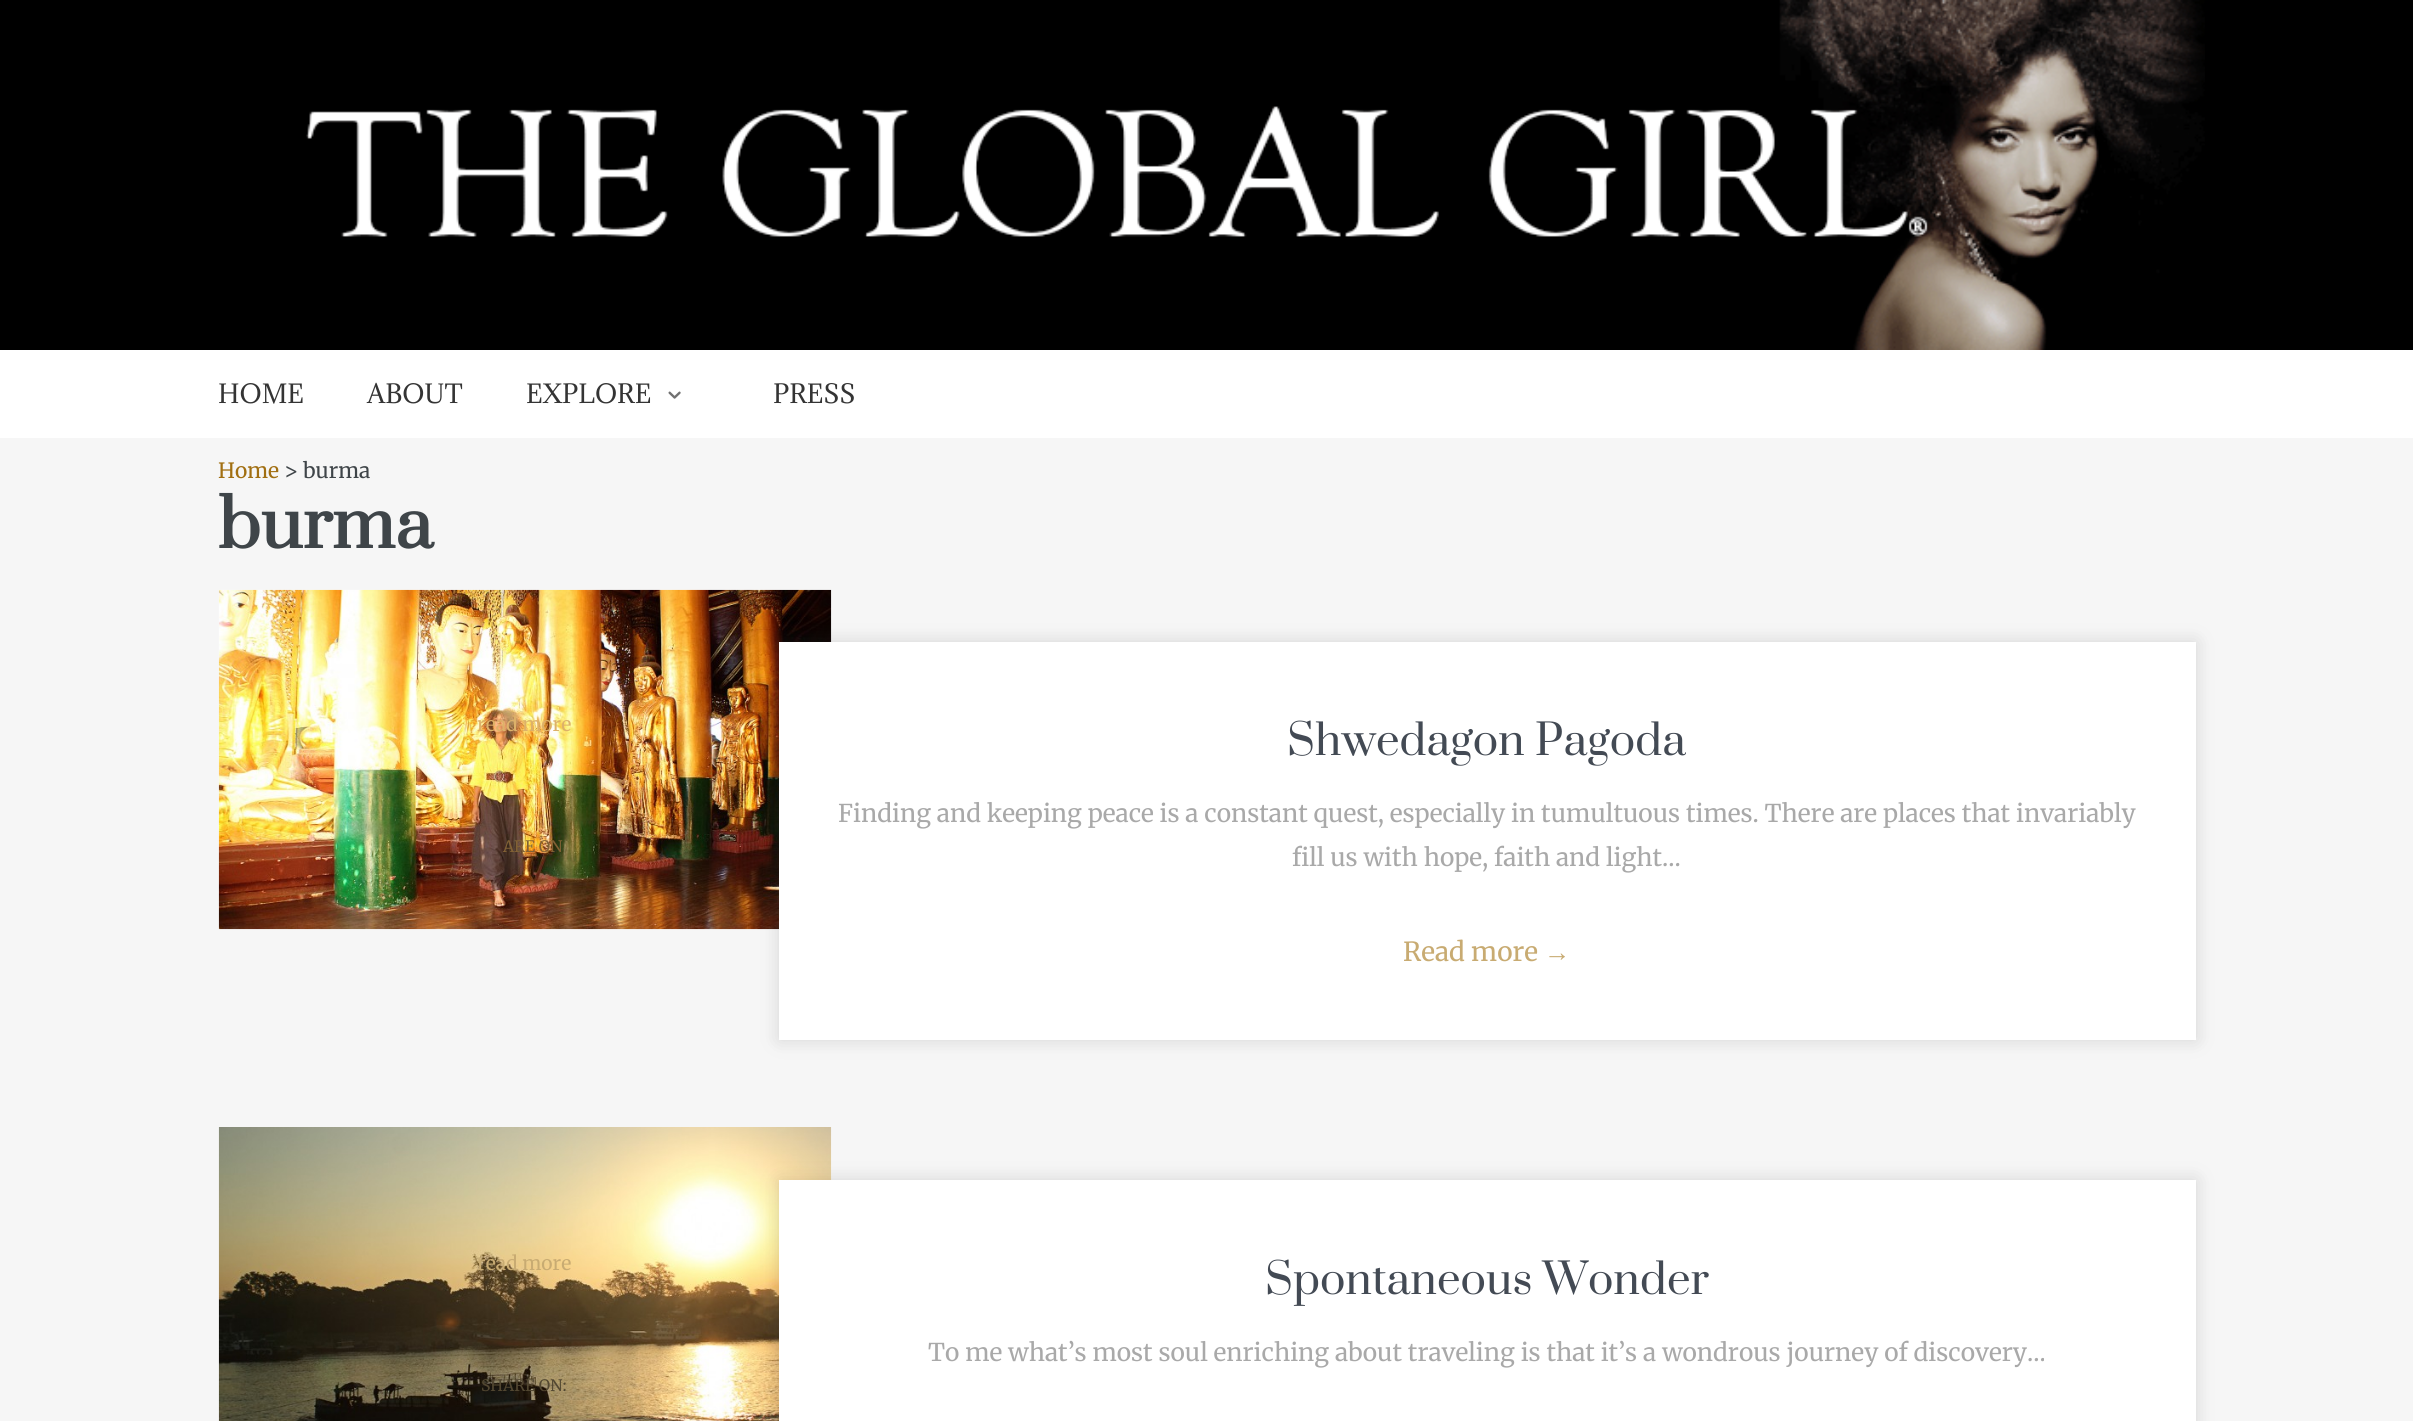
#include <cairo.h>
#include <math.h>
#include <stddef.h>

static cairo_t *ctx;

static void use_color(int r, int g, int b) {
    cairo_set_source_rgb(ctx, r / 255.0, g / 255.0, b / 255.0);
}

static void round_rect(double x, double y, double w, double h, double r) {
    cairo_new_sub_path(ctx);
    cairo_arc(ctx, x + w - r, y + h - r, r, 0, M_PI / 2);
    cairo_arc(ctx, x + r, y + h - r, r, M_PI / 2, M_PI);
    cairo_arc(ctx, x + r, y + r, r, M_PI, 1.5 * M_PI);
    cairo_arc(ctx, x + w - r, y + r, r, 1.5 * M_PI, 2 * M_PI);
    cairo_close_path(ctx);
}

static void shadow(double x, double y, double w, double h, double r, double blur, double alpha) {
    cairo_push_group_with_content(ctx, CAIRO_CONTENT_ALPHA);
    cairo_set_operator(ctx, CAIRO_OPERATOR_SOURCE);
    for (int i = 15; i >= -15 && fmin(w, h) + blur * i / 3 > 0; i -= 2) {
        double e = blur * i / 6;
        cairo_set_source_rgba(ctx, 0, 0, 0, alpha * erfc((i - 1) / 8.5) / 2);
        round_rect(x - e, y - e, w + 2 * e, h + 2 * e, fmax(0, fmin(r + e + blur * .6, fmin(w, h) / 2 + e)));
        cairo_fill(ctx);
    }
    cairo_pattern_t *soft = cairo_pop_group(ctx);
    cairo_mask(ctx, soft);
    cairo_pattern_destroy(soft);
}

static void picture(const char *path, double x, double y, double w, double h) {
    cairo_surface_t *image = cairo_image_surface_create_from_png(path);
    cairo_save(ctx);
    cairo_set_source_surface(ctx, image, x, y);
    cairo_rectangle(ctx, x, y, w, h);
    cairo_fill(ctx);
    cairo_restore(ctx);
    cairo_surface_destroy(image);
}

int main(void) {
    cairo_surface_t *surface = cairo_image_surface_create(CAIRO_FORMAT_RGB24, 2413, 1421);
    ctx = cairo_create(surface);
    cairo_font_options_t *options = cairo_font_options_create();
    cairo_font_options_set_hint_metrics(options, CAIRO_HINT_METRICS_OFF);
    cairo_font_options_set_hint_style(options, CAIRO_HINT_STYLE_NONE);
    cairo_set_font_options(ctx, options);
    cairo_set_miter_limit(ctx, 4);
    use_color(246, 246, 246);
    cairo_paint(ctx);
    use_color(0, 0, 0);
    cairo_rectangle(ctx, 0, 0, 2413, 350);
    cairo_fill(ctx);
    picture("img1.png", 306, 0, 1899, 350);
    use_color(255, 255, 255);
    cairo_rectangle(ctx, 0, 350, 2413, 88);
    cairo_fill(ctx);
    cairo_select_font_face(ctx, "Adamina", CAIRO_FONT_SLANT_NORMAL, CAIRO_FONT_WEIGHT_NORMAL);
    cairo_set_font_size(ctx, 24.5);
    use_color(52, 52, 52);
    cairo_move_to(ctx, 218, 403);
    cairo_show_text(ctx, "HOME");
    cairo_move_to(ctx, 367, 403);
    cairo_show_text(ctx, "ABOUT");
    cairo_move_to(ctx, 526, 403);
    cairo_show_text(ctx, "EXPLORE");
    picture("img2.png", 668, 391, 13, 8);
    cairo_move_to(ctx, 773, 403);
    cairo_show_text(ctx, "PRESS");
    cairo_select_font_face(ctx, "Merriweather", CAIRO_FONT_SLANT_NORMAL, CAIRO_FONT_WEIGHT_NORMAL);
    cairo_set_font_size(ctx, 21);
    use_color(161, 111, 18);
    cairo_move_to(ctx, 218, 478);
    cairo_show_text(ctx, "Home");
    use_color(63, 69, 73);
    cairo_move_to(ctx, 284, 478);
    cairo_show_text(ctx, "> burma");
    cairo_select_font_face(ctx, "Prata", CAIRO_FONT_SLANT_NORMAL, CAIRO_FONT_WEIGHT_BOLD);
    cairo_set_font_size(ctx, 66.5);
    cairo_move_to(ctx, 218, 548);
    cairo_show_text(ctx, "burma");
    picture("img3.png", 218, 589, 614, 341);
    cairo_select_font_face(ctx, "Merriweather", CAIRO_FONT_SLANT_NORMAL, CAIRO_FONT_WEIGHT_NORMAL);
    cairo_set_font_size(ctx, 19.25);
    use_color(221, 177, 105);
    cairo_move_to(ctx, 477, 731);
    cairo_show_text(ctx, "read more");
    cairo_set_font_size(ctx, 15.75);
    use_color(129, 97, 53);
    cairo_move_to(ctx, 503, 852);
    cairo_show_text(ctx, "ARE ON");
    use_color(70, 70, 70);
    shadow(779, 642, 1417, 398, 0, 9, 0.2);
    use_color(255, 255, 255);
    cairo_rectangle(ctx, 779, 642, 1417, 398);
    cairo_fill(ctx);
    cairo_select_font_face(ctx, "Prata", CAIRO_FONT_SLANT_NORMAL, CAIRO_FONT_WEIGHT_NORMAL);
    cairo_set_font_size(ctx, 42);
    use_color(67, 74, 84);
    cairo_move_to(ctx, 1287, 755);
    cairo_show_text(ctx, "Shwedagon Pagoda");
    cairo_select_font_face(ctx, "Merriweather", CAIRO_FONT_SLANT_NORMAL, CAIRO_FONT_WEIGHT_NORMAL);
    cairo_set_font_size(ctx, 24.5);
    use_color(169, 169, 169);
    cairo_move_to(ctx, 838, 822);
    cairo_show_text(ctx, "Finding and keeping peace is a constant quest, especially in tumultuous times. There are places that invariably");
    cairo_move_to(ctx, 1292, 866);
    cairo_show_text(ctx, "fill us with hope, faith and light...");
    cairo_set_font_size(ctx, 26.25);
    use_color(200, 171, 114);
    cairo_move_to(ctx, 1403, 961);
    cairo_show_text(ctx, "Read more");
    cairo_select_font_face(ctx, "Liberation Sans", CAIRO_FONT_SLANT_NORMAL, CAIRO_FONT_WEIGHT_NORMAL);
    cairo_move_to(ctx, 1544, 961);
    cairo_show_text(ctx, "→");
    picture("img4.png", 218, 1127, 614, 294);
    cairo_select_font_face(ctx, "Merriweather", CAIRO_FONT_SLANT_NORMAL, CAIRO_FONT_WEIGHT_NORMAL);
    cairo_set_font_size(ctx, 19.25);
    cairo_move_to(ctx, 477, 1270);
    cairo_show_text(ctx, "read more");
    cairo_set_font_size(ctx, 15.75);
    use_color(82, 71, 49);
    cairo_move_to(ctx, 481, 1391);
    cairo_show_text(ctx, "SHARE ON:");
    use_color(70, 70, 70);
    shadow(779, 1180, 1417, 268, 0, 9, 0.2);
    use_color(255, 255, 255);
    cairo_rectangle(ctx, 779, 1180, 1417, 241);
    cairo_fill(ctx);
    cairo_select_font_face(ctx, "Prata", CAIRO_FONT_SLANT_NORMAL, CAIRO_FONT_WEIGHT_NORMAL);
    cairo_set_font_size(ctx, 42);
    use_color(67, 74, 84);
    cairo_move_to(ctx, 1265, 1294);
    cairo_show_text(ctx, "Spontaneous Wonder");
    cairo_select_font_face(ctx, "Merriweather", CAIRO_FONT_SLANT_NORMAL, CAIRO_FONT_WEIGHT_NORMAL);
    cairo_set_font_size(ctx, 24.5);
    use_color(169, 169, 169);
    cairo_move_to(ctx, 928, 1361);
    cairo_show_text(ctx, "To me what’s most soul enriching about traveling is that it’s a wondrous journey of discovery...");
    cairo_surface_write_to_png(surface, "result.png");
    cairo_font_options_destroy(options);
    cairo_destroy(ctx);
    cairo_surface_destroy(surface);
    return 0;
}
